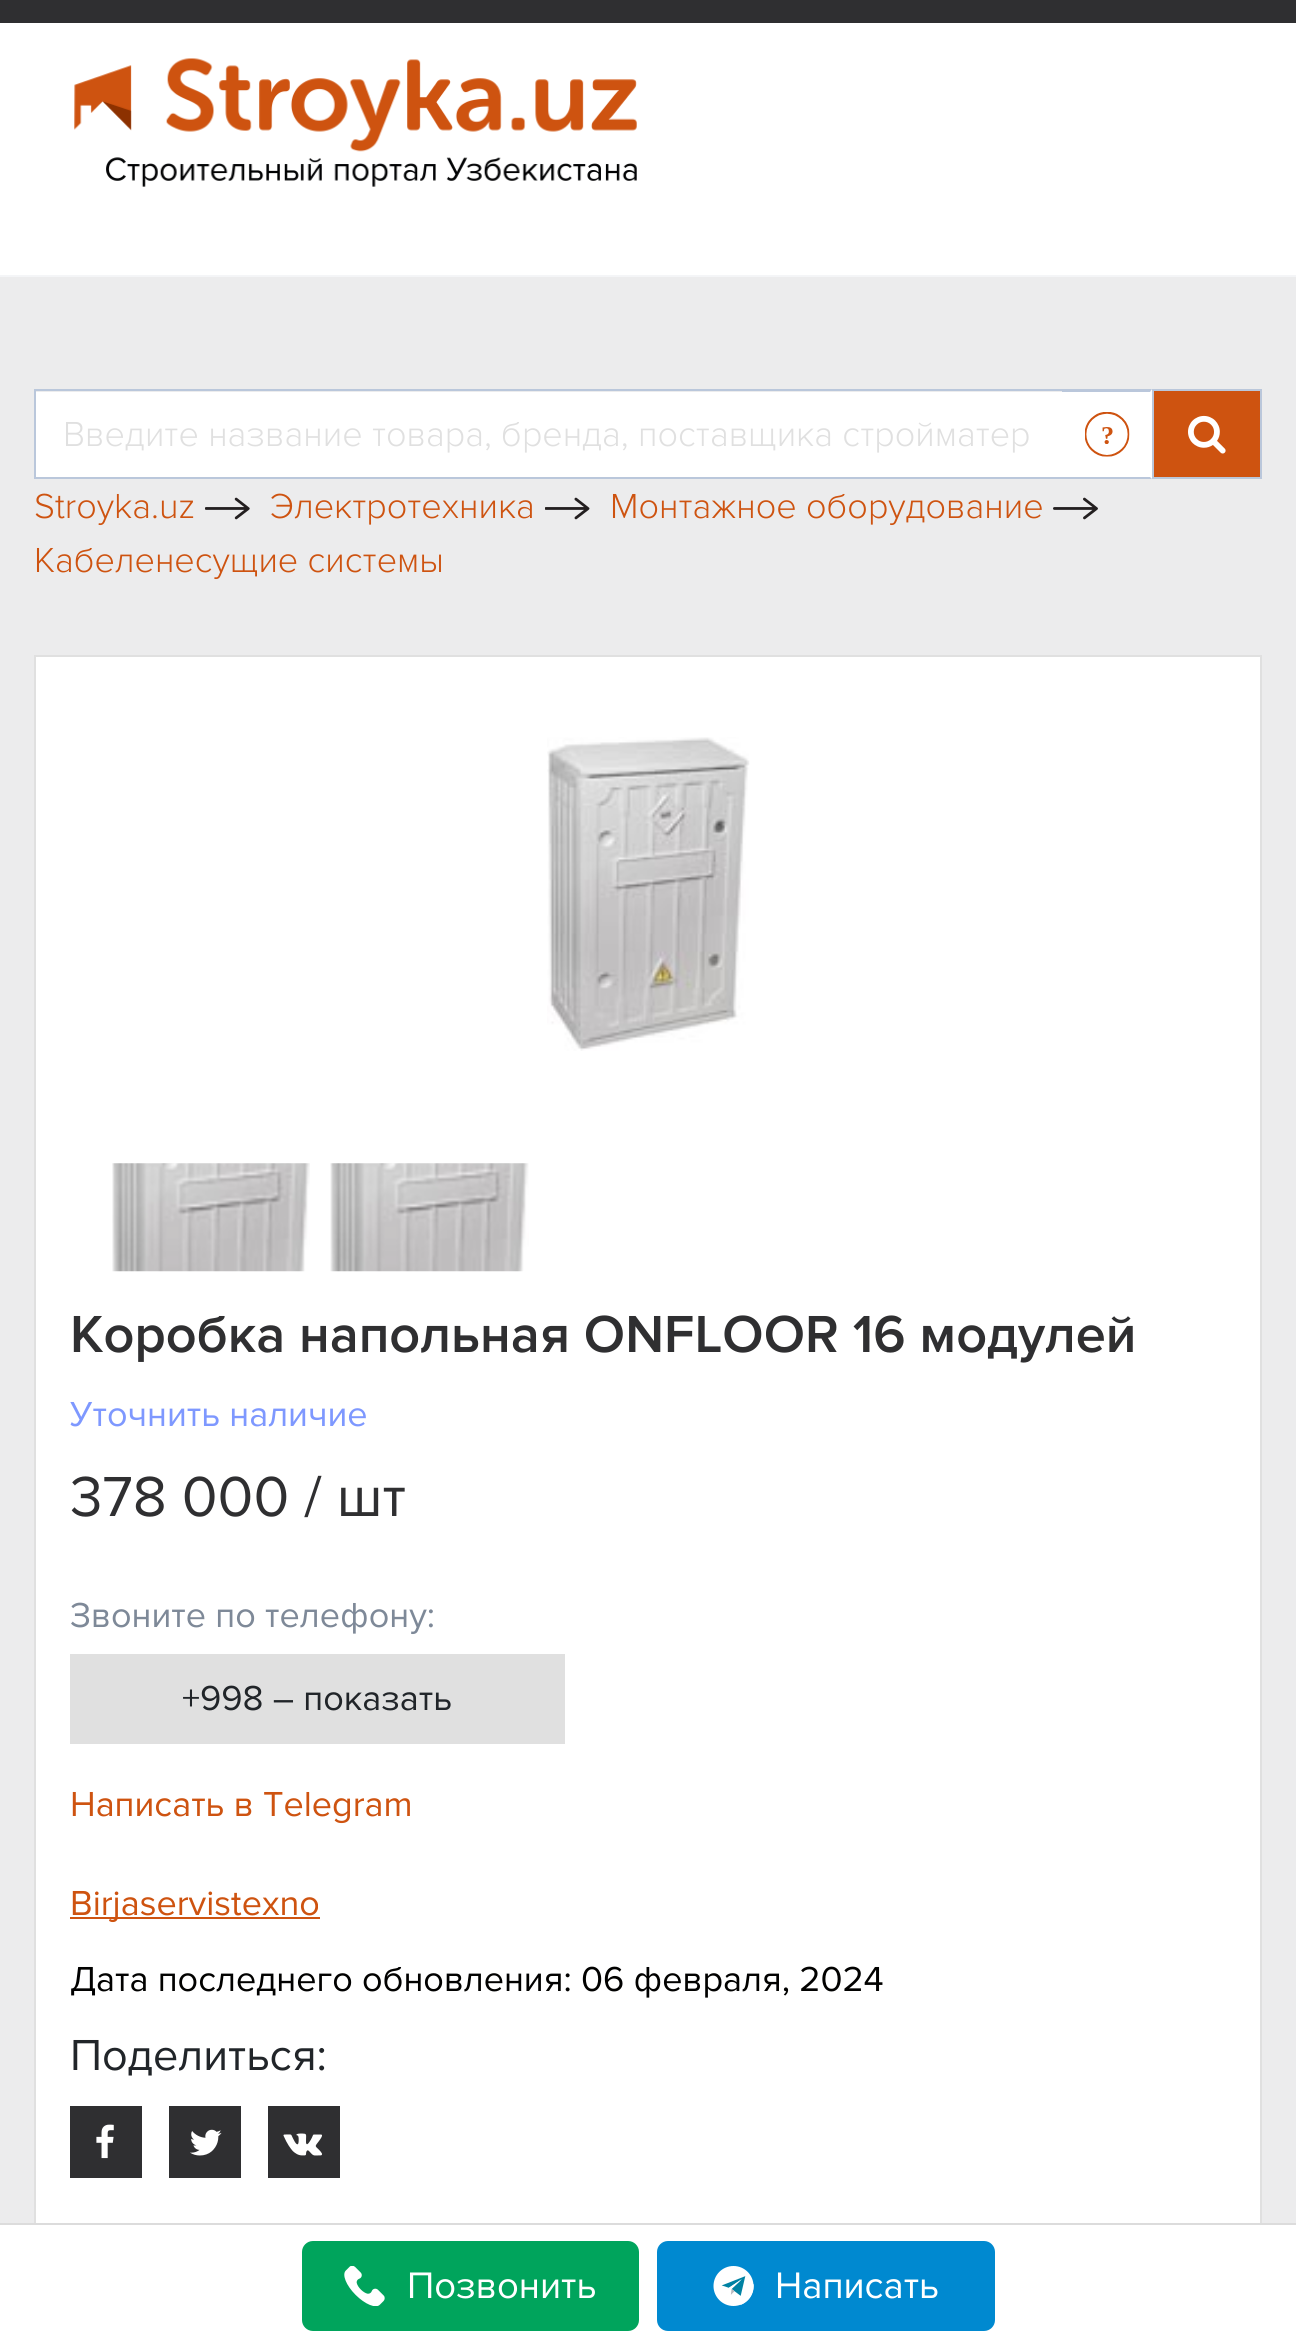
#include <cairo.h>
#include <math.h>
#include <stddef.h>

static cairo_t *ctx;

static void use_color(int r, int g, int b) {
    cairo_set_source_rgb(ctx, r / 255.0, g / 255.0, b / 255.0);
}

static void round_rect(double x, double y, double w, double h, double r) {
    cairo_new_sub_path(ctx);
    cairo_arc(ctx, x + w - r, y + h - r, r, 0, M_PI / 2);
    cairo_arc(ctx, x + r, y + h - r, r, M_PI / 2, M_PI);
    cairo_arc(ctx, x + r, y + r, r, M_PI, 1.5 * M_PI);
    cairo_arc(ctx, x + w - r, y + r, r, 1.5 * M_PI, 2 * M_PI);
    cairo_close_path(ctx);
}

static void picture(const char *path, double x, double y, double w, double h) {
    cairo_surface_t *image = cairo_image_surface_create_from_png(path);
    cairo_save(ctx);
    cairo_set_source_surface(ctx, image, x, y);
    cairo_rectangle(ctx, x, y, w, h);
    cairo_fill(ctx);
    cairo_restore(ctx);
    cairo_surface_destroy(image);
}

int main(void) {
    cairo_surface_t *surface = cairo_image_surface_create(CAIRO_FORMAT_RGB24, 1296, 2345);
    ctx = cairo_create(surface);
    cairo_font_options_t *options = cairo_font_options_create();
    cairo_font_options_set_hint_metrics(options, CAIRO_HINT_METRICS_OFF);
    cairo_font_options_set_hint_style(options, CAIRO_HINT_STYLE_NONE);
    cairo_set_font_options(ctx, options);
    cairo_set_miter_limit(ctx, 4);
    use_color(236, 236, 237);
    cairo_paint(ctx);
    use_color(47, 47, 49);
    cairo_rectangle(ctx, 0, 0, 1296, 23);
    cairo_fill(ctx);
    use_color(255, 255, 255);
    cairo_rectangle(ctx, 0, 23, 1296, 252);
    cairo_fill(ctx);
    use_color(244, 245, 247);
    cairo_rectangle(ctx, 0, 275, 1296, 2);
    cairo_fill(ctx);
    picture("img1.png", 74, 58, 563, 129);
    use_color(255, 255, 255);
    cairo_rectangle(ctx, 36, 392, 1026, 85);
    cairo_fill(ctx);
    cairo_rectangle(ctx, 35, 390, 1028, 88);
    use_color(186, 199, 219);
    cairo_stroke(ctx);
    cairo_select_font_face(ctx, "Proxima Nova Light", CAIRO_FONT_SLANT_NORMAL, CAIRO_FONT_WEIGHT_NORMAL);
    cairo_set_font_size(ctx, 36);
    use_color(224, 224, 224);
    cairo_move_to(ctx, 63, 446);
    cairo_show_text(ctx, "Введите название товара, бренда, поставщика стройматер");
    use_color(255, 255, 255);
    cairo_rectangle(ctx, 1062, 389, 90, 90);
    cairo_fill(ctx);
    use_color(186, 199, 219);
    cairo_new_path(ctx);
    cairo_move_to(ctx, 1062, 389);
    cairo_line_to(ctx, 1152, 389);
    cairo_line_to(ctx, 1150, 392);
    cairo_line_to(ctx, 1062, 392);
    cairo_close_path(ctx);
    cairo_fill(ctx);
    cairo_new_path(ctx);
    cairo_move_to(ctx, 1152, 479);
    cairo_line_to(ctx, 1062, 479);
    cairo_line_to(ctx, 1062, 477);
    cairo_line_to(ctx, 1150, 477);
    cairo_close_path(ctx);
    cairo_fill(ctx);
    picture("img2.png", 1085, 412, 45, 45);
    use_color(206, 83, 16);
    cairo_rectangle(ctx, 1153, 390, 108, 88);
    cairo_fill_preserve(ctx);
    use_color(186, 199, 219);
    cairo_stroke(ctx);
    picture("img3.png", 1188, 415, 38, 39);
    use_color(206, 83, 16);
    cairo_move_to(ctx, 34, 518);
    cairo_show_text(ctx, "Stroyka.uz");
    picture("img4.png", 205, 497, 45, 23);
    cairo_move_to(ctx, 270, 518);
    cairo_show_text(ctx, "Электротехника");
    picture("img5.png", 545, 497, 45, 23);
    cairo_move_to(ctx, 610, 518);
    cairo_show_text(ctx, "Монтажное оборудование");
    picture("img6.png", 1053, 497, 45, 23);
    cairo_move_to(ctx, 34, 572);
    cairo_show_text(ctx, "Кабеленесущие системы");
    use_color(255, 255, 255);
    cairo_rectangle(ctx, 36, 657, 1224, 1566);
    cairo_fill(ctx);
    cairo_rectangle(ctx, 35, 656, 1226, 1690);
    use_color(224, 224, 224);
    cairo_stroke(ctx);
    picture("img7.png", 547, 737, 203, 314);
    picture("img8.png", 112, 1163, 198, 109);
    picture("img9.png", 330, 1163, 199, 109);
    cairo_select_font_face(ctx, "Proxima Nova SemiBold", CAIRO_FONT_SLANT_NORMAL, CAIRO_FONT_WEIGHT_NORMAL);
    cairo_set_font_size(ctx, 54);
    use_color(47, 47, 49);
    cairo_move_to(ctx, 70, 1352);
    cairo_show_text(ctx, "Коробка напольная ONFLOOR 16 модулей");
    cairo_select_font_face(ctx, "Proxima Nova", CAIRO_FONT_SLANT_NORMAL, CAIRO_FONT_WEIGHT_NORMAL);
    cairo_set_font_size(ctx, 36);
    use_color(126, 152, 255);
    cairo_move_to(ctx, 70, 1426);
    cairo_show_text(ctx, "Уточнить наличие");
    cairo_set_font_size(ctx, 58.5);
    use_color(47, 47, 49);
    cairo_move_to(ctx, 70, 1516);
    cairo_show_text(ctx, "378 000 / шт");
    cairo_set_font_size(ctx, 36);
    use_color(126, 137, 152);
    cairo_move_to(ctx, 70, 1627);
    cairo_show_text(ctx, "Звоните по телефону:");
    use_color(224, 224, 224);
    cairo_rectangle(ctx, 70, 1654, 495, 90);
    cairo_fill(ctx);
    use_color(33, 37, 41);
    cairo_move_to(ctx, 182, 1710);
    cairo_show_text(ctx, "+998 – показать");
    use_color(206, 83, 16);
    cairo_move_to(ctx, 70, 1816);
    cairo_show_text(ctx, "Написать в Telegram");
    cairo_rectangle(ctx, 70, 1917, 250, 2);
    cairo_fill(ctx);
    cairo_move_to(ctx, 70, 1915);
    cairo_show_text(ctx, "Birjaservistexno");
    use_color(1, 1, 0);
    cairo_move_to(ctx, 70, 1991);
    cairo_show_text(ctx, "Дата последнего обновления: 06 февраля, 2024");
    cairo_set_font_size(ctx, 45);
    use_color(33, 37, 41);
    cairo_move_to(ctx, 70, 2070);
    cairo_show_text(ctx, "Поделиться:");
    use_color(47, 47, 49);
    cairo_rectangle(ctx, 70, 2106, 72, 72);
    cairo_fill(ctx);
    picture("img10.png", 96, 2124, 18, 35);
    cairo_rectangle(ctx, 169, 2106, 72, 72);
    cairo_fill(ctx);
    picture("img11.png", 190, 2129, 32, 27);
    cairo_rectangle(ctx, 268, 2106, 72, 72);
    cairo_fill(ctx);
    picture("img12.png", 283, 2133, 39, 23);
    use_color(255, 255, 255);
    cairo_rectangle(ctx, 0, 2225, 1296, 120);
    cairo_fill(ctx);
    use_color(220, 220, 220);
    cairo_rectangle(ctx, 0, 2223, 1296, 2);
    cairo_fill(ctx);
    use_color(0, 164, 92);
    round_rect(302, 2241, 337, 90, 11);
    cairo_fill(ctx);
    picture("img13.png", 344, 2266, 41, 40);
    cairo_set_font_size(ctx, 38.25);
    use_color(255, 255, 255);
    cairo_move_to(ctx, 407, 2298);
    cairo_show_text(ctx, "Позвонить");
    use_color(0, 137, 208);
    round_rect(657, 2241, 338, 90, 11);
    cairo_fill(ctx);
    picture("img14.png", 713, 2266, 41, 40);
    use_color(255, 255, 255);
    cairo_move_to(ctx, 775, 2298);
    cairo_show_text(ctx, "Написать");
    cairo_surface_write_to_png(surface, "result.png");
    cairo_font_options_destroy(options);
    cairo_destroy(ctx);
    cairo_surface_destroy(surface);
    return 0;
}
